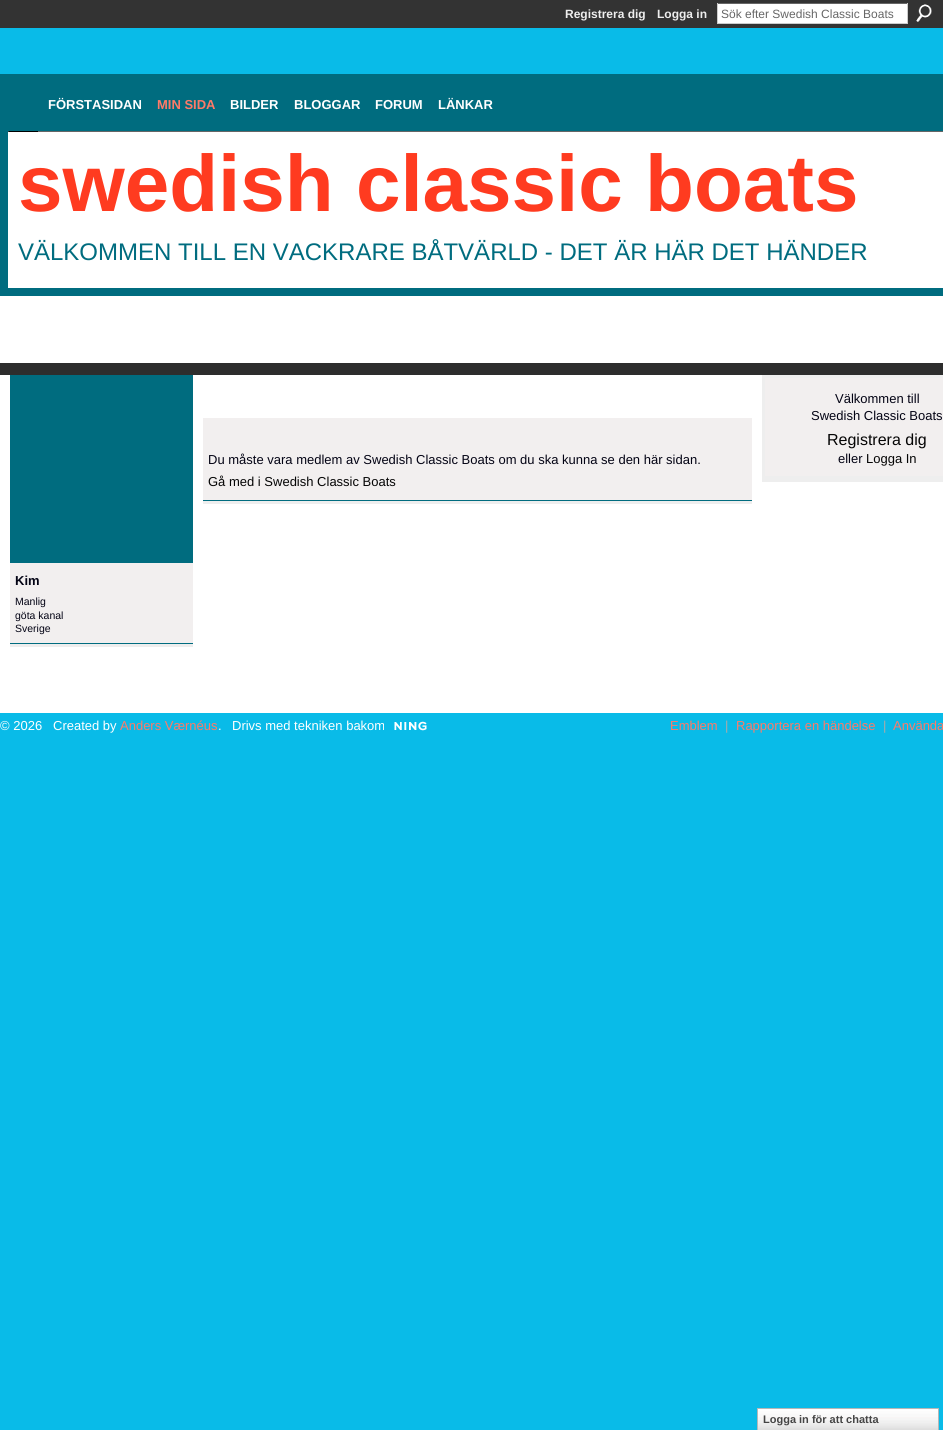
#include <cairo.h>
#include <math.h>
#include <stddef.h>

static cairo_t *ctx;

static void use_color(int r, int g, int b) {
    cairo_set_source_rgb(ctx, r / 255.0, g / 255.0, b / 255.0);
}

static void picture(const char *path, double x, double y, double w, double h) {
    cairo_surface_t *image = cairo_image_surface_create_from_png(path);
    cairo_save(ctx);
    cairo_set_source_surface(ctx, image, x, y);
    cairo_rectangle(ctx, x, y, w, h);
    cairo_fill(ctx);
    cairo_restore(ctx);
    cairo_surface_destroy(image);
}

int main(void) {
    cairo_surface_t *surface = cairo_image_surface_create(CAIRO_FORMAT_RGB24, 943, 1430);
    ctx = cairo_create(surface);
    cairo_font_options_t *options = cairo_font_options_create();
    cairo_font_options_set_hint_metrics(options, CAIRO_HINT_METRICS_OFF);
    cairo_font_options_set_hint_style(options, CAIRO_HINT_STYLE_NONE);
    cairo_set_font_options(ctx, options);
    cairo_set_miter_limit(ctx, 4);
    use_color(9, 187, 232);
    cairo_paint(ctx);
    use_color(51, 51, 51);
    cairo_rectangle(ctx, 0, 0, 943, 28);
    cairo_fill(ctx);
    cairo_select_font_face(ctx, "Liberation Sans", CAIRO_FONT_SLANT_NORMAL, CAIRO_FONT_WEIGHT_BOLD);
    cairo_set_font_size(ctx, 12);
    use_color(238, 238, 238);
    cairo_move_to(ctx, 565, 18);
    cairo_show_text(ctx, "Registrera dig");
    cairo_move_to(ctx, 657, 18);
    cairo_show_text(ctx, "Logga in");
    use_color(255, 255, 255);
    cairo_rectangle(ctx, 718, 4, 189, 19);
    cairo_fill(ctx);
    use_color(102, 102, 102);
    cairo_rectangle(ctx, 717, 3, 191, 1);
    cairo_fill(ctx);
    use_color(204, 204, 204);
    cairo_rectangle(ctx, 907, 3, 1, 21);
    cairo_fill(ctx);
    cairo_rectangle(ctx, 717, 23, 191, 1);
    cairo_fill(ctx);
    cairo_rectangle(ctx, 717, 3, 1, 21);
    cairo_fill(ctx);
    cairo_select_font_face(ctx, "Liberation Sans", CAIRO_FONT_SLANT_NORMAL, CAIRO_FONT_WEIGHT_NORMAL);
    use_color(102, 102, 102);
    cairo_move_to(ctx, 721, 18);
    cairo_show_text(ctx, "Sök efter Swedish Classic Boats");
    picture("img1.png", 916, 4, 16, 18);
    cairo_rectangle(ctx, 4, 78, 935, 214);
    use_color(0, 108, 127);
    cairo_set_line_width(ctx, 8);
    cairo_stroke(ctx);
    cairo_rectangle(ctx, 8, 82, 927, 49);
    cairo_fill(ctx);
    picture("img2.png", 8, 131, 935, 1);
    cairo_select_font_face(ctx, "Liberation Sans", CAIRO_FONT_SLANT_NORMAL, CAIRO_FONT_WEIGHT_BOLD);
    cairo_set_font_size(ctx, 13);
    use_color(255, 255, 255);
    cairo_move_to(ctx, 48, 109);
    cairo_show_text(ctx, "FÖRSTASIDAN");
    use_color(255, 122, 104);
    cairo_move_to(ctx, 157, 109);
    cairo_show_text(ctx, "MIN SIDA");
    use_color(255, 255, 255);
    cairo_move_to(ctx, 230, 109);
    cairo_show_text(ctx, "BILDER");
    cairo_move_to(ctx, 294, 109);
    cairo_show_text(ctx, "BLOGGAR");
    cairo_move_to(ctx, 375, 109);
    cairo_show_text(ctx, "FORUM");
    cairo_move_to(ctx, 438, 109);
    cairo_show_text(ctx, "LÄNKAR");
    cairo_rectangle(ctx, 8, 132, 935, 156);
    cairo_fill(ctx);
    cairo_set_font_size(ctx, 80);
    use_color(255, 59, 32);
    cairo_move_to(ctx, 18, 211);
    cairo_show_text(ctx, "swedish classic boats");
    cairo_select_font_face(ctx, "Liberation Sans", CAIRO_FONT_SLANT_NORMAL, CAIRO_FONT_WEIGHT_NORMAL);
    cairo_set_font_size(ctx, 24);
    use_color(0, 108, 127);
    cairo_move_to(ctx, 18, 260);
    cairo_show_text(ctx, "VÄLKOMMEN TILL EN VACKRARE BÅTVÄRLD - DET ÄR HÄR DET HÄNDER");
    use_color(255, 255, 255);
    cairo_rectangle(ctx, 0, 296, 943, 67);
    cairo_fill(ctx);
    cairo_rectangle(ctx, 0, 375, 943, 338);
    cairo_fill(ctx);
    use_color(45, 45, 45);
    cairo_rectangle(ctx, 0, 363, 943, 12);
    cairo_fill(ctx);
    use_color(238, 238, 238);
    cairo_rectangle(ctx, 762, 479, 181, 3);
    cairo_fill(ctx);
    use_color(242, 239, 239);
    cairo_rectangle(ctx, 763.5, 376.5, 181, 101);
    cairo_fill_preserve(ctx);
    use_color(238, 238, 238);
    cairo_set_line_width(ctx, 3);
    cairo_stroke(ctx);
    cairo_set_font_size(ctx, 13);
    use_color(3, 3, 20);
    cairo_move_to(ctx, 835, 403);
    cairo_show_text(ctx, "Välkommen till");
    cairo_move_to(ctx, 811, 420);
    cairo_show_text(ctx, "Swedish Classic Boats");
    cairo_set_font_size(ctx, 16);
    use_color(5, 5, 5);
    cairo_move_to(ctx, 827, 445);
    cairo_show_text(ctx, "Registrera dig");
    cairo_set_font_size(ctx, 13);
    use_color(3, 3, 20);
    cairo_move_to(ctx, 838, 463);
    cairo_show_text(ctx, "eller");
    use_color(5, 5, 5);
    cairo_move_to(ctx, 866, 463);
    cairo_show_text(ctx, "Logga In");
    use_color(0, 108, 127);
    cairo_rectangle(ctx, 203, 500, 549, 1);
    cairo_fill(ctx);
    use_color(238, 238, 238);
    cairo_rectangle(ctx, 203, 501, 549, 3);
    cairo_fill(ctx);
    use_color(242, 239, 239);
    cairo_rectangle(ctx, 203, 418, 549, 82);
    cairo_fill(ctx);
    use_color(3, 3, 20);
    cairo_move_to(ctx, 208, 464);
    cairo_show_text(ctx, "Du måste vara medlem av Swedish Classic Boats om du ska kunna se den här sidan.");
    use_color(5, 5, 5);
    cairo_move_to(ctx, 208, 486);
    cairo_show_text(ctx, "Gå med i Swedish Classic Boats");
    use_color(0, 108, 127);
    cairo_rectangle(ctx, 10, 375, 183, 269);
    cairo_fill(ctx);
    use_color(238, 238, 238);
    cairo_rectangle(ctx, 10, 644, 183, 3);
    cairo_fill(ctx);
    use_color(242, 239, 239);
    cairo_rectangle(ctx, 10, 563, 183, 80);
    cairo_fill(ctx);
    cairo_select_font_face(ctx, "Liberation Sans", CAIRO_FONT_SLANT_NORMAL, CAIRO_FONT_WEIGHT_BOLD);
    use_color(3, 3, 20);
    cairo_move_to(ctx, 15, 585);
    cairo_show_text(ctx, "Kim");
    cairo_select_font_face(ctx, "Liberation Sans", CAIRO_FONT_SLANT_NORMAL, CAIRO_FONT_WEIGHT_NORMAL);
    cairo_set_font_size(ctx, 10.5);
    cairo_move_to(ctx, 15, 605);
    cairo_show_text(ctx, "Manlig");
    cairo_move_to(ctx, 15, 619);
    cairo_show_text(ctx, "göta kanal");
    cairo_move_to(ctx, 15, 632);
    cairo_show_text(ctx, "Sverige");
    cairo_set_font_size(ctx, 13);
    use_color(255, 255, 255);
    cairo_move_to(ctx, 0, 730);
    cairo_show_text(ctx, "© 2026");
    cairo_move_to(ctx, 53, 730);
    cairo_show_text(ctx, "Created by");
    use_color(255, 122, 104);
    cairo_move_to(ctx, 120, 730);
    cairo_show_text(ctx, "Anders Værnéus");
    use_color(255, 255, 255);
    cairo_move_to(ctx, 218, 730);
    cairo_show_text(ctx, ".");
    cairo_move_to(ctx, 232, 730);
    cairo_show_text(ctx, "Drivs med tekniken bakom");
    picture("img3.png", 394, 721, 33, 10);
    use_color(255, 122, 104);
    cairo_move_to(ctx, 670, 730);
    cairo_show_text(ctx, "Emblem");
    use_color(170, 170, 170);
    cairo_move_to(ctx, 725, 730);
    cairo_show_text(ctx, "|");
    use_color(255, 122, 104);
    cairo_move_to(ctx, 736, 730);
    cairo_show_text(ctx, "Rapportera en händelse");
    use_color(170, 170, 170);
    cairo_move_to(ctx, 883, 730);
    cairo_show_text(ctx, "|");
    use_color(255, 122, 104);
    cairo_move_to(ctx, 893, 730);
    cairo_show_text(ctx, "Använda");
    picture("img4.png", 758, 1409, 180, 21);
    cairo_rectangle(ctx, 757.5, 1408.5, 181, 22);
    use_color(183, 183, 183);
    cairo_set_line_width(ctx, 1);
    cairo_stroke(ctx);
    cairo_select_font_face(ctx, "Liberation Sans", CAIRO_FONT_SLANT_NORMAL, CAIRO_FONT_WEIGHT_BOLD);
    cairo_set_font_size(ctx, 11);
    use_color(69, 69, 69);
    cairo_move_to(ctx, 763, 1423);
    cairo_show_text(ctx, "Logga in för att chatta");
    cairo_surface_write_to_png(surface, "result.png");
    cairo_font_options_destroy(options);
    cairo_destroy(ctx);
    cairo_surface_destroy(surface);
    return 0;
}
